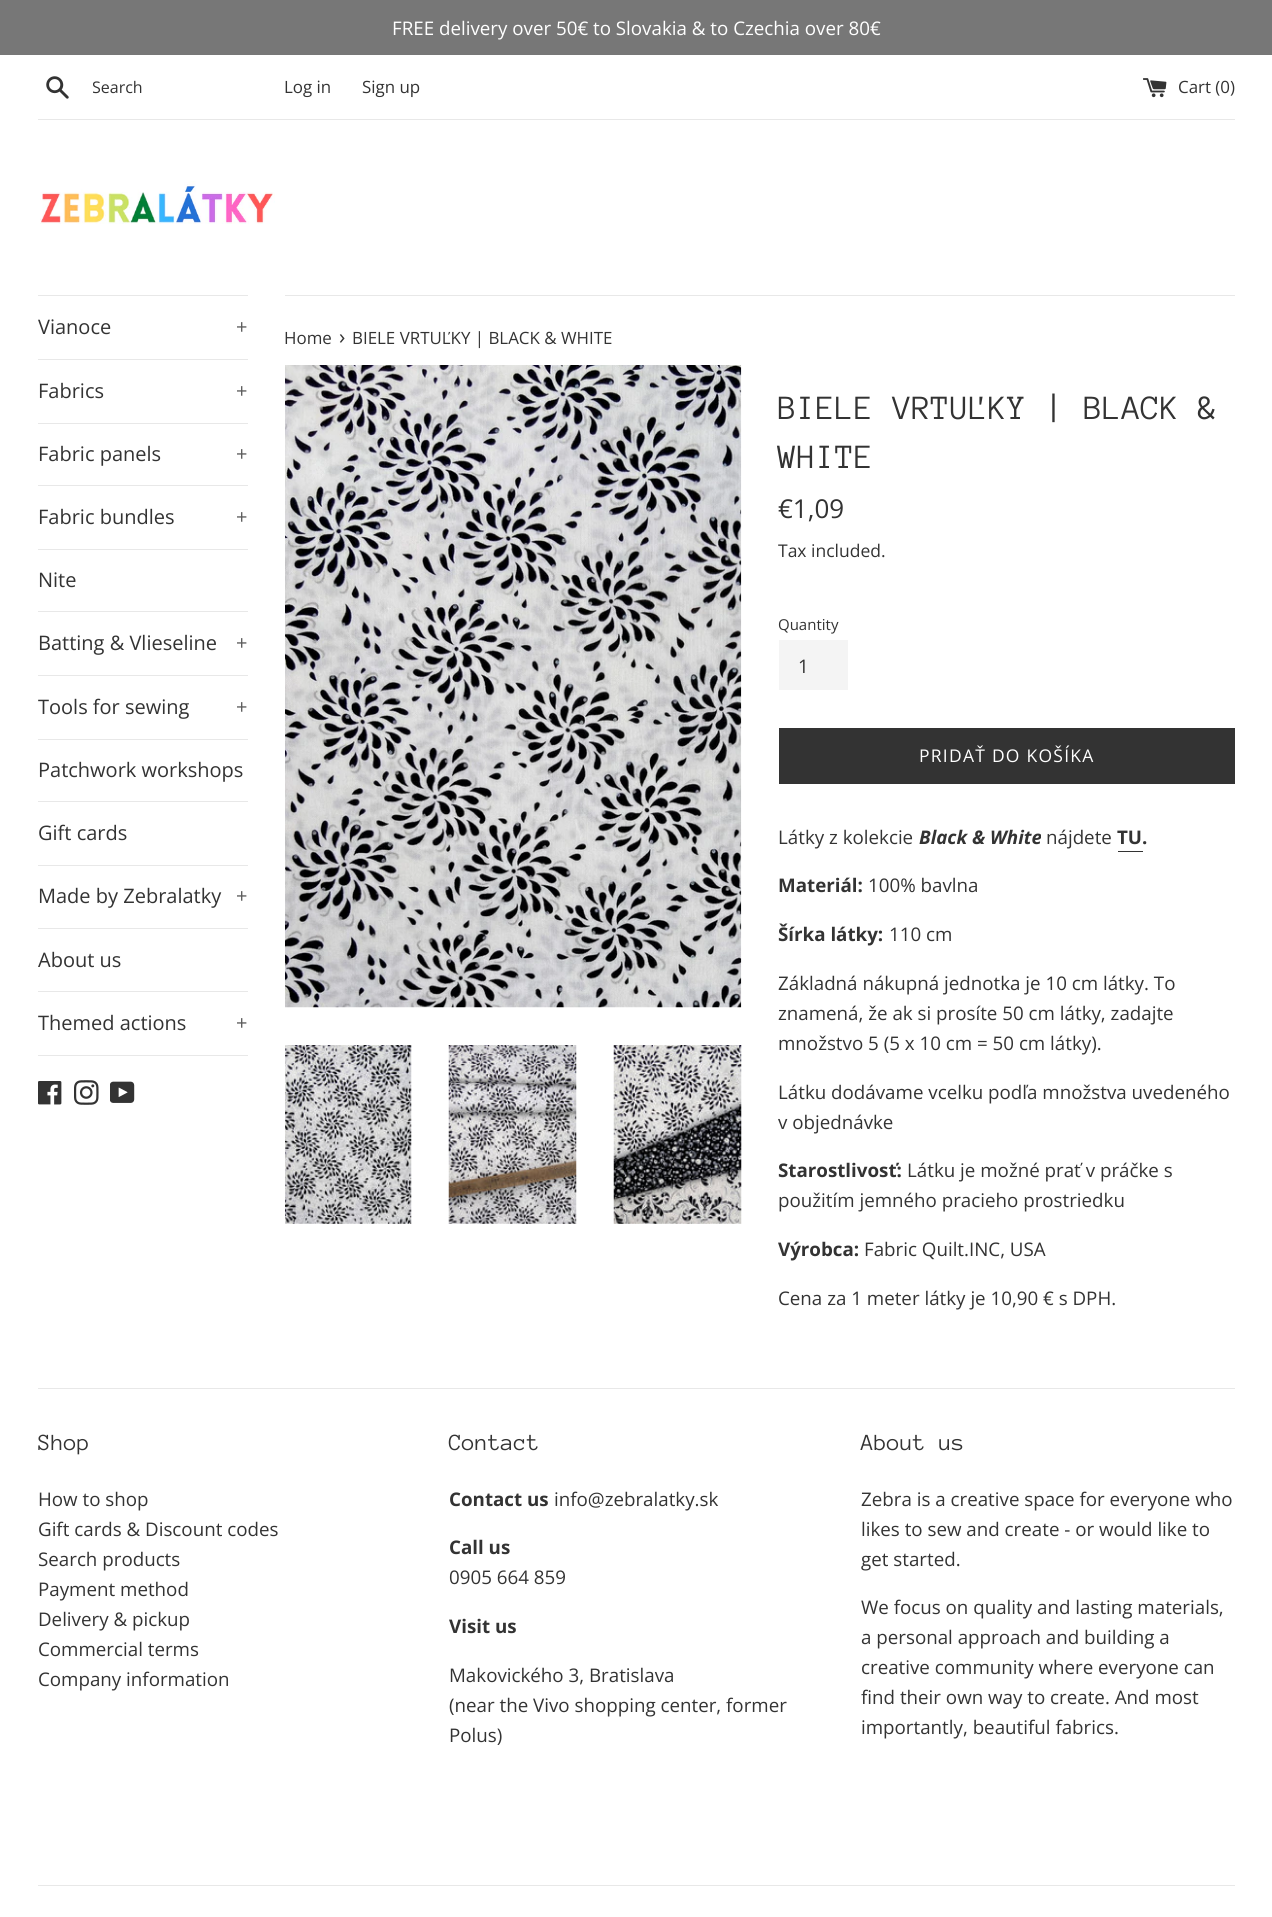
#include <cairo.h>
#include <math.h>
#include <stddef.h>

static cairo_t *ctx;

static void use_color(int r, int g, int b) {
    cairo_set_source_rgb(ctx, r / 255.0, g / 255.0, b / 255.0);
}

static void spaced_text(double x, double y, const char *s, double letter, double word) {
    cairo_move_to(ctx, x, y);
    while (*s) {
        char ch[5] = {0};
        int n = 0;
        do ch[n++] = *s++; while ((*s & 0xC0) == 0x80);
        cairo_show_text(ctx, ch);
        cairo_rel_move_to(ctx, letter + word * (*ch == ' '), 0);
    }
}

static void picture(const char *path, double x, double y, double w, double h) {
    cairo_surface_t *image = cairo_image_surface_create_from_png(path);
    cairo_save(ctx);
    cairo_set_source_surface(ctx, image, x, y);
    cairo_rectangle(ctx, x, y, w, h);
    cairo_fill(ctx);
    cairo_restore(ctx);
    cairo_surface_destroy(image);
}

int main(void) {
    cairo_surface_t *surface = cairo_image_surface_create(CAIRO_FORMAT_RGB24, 1272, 1917);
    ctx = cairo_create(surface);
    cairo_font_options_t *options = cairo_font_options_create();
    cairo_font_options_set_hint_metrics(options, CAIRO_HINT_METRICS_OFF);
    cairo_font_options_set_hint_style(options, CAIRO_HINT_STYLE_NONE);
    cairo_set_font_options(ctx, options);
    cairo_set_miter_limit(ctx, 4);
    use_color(255, 255, 255);
    cairo_paint(ctx);
    use_color(119, 119, 119);
    cairo_rectangle(ctx, 0, 0, 1272, 55);
    cairo_fill(ctx);
    cairo_select_font_face(ctx, "Open Sans", CAIRO_FONT_SLANT_NORMAL, CAIRO_FONT_WEIGHT_NORMAL);
    cairo_set_font_size(ctx, 18.75);
    use_color(255, 255, 255);
    cairo_move_to(ctx, 392, 35);
    cairo_show_text(ctx, "FREE delivery over 50€ to Slovakia & to Czechia over 80€");
    picture("img1.png", 46, 76, 23, 23);
    cairo_save(ctx);
    cairo_rectangle(ctx, 93, 76, 176, 23);
    cairo_clip(ctx);
    cairo_set_font_size(ctx, 16);
    use_color(51, 51, 51);
    cairo_move_to(ctx, 92, 93);
    cairo_show_text(ctx, "Search");
    cairo_restore(ctx);
    cairo_set_font_size(ctx, 16.9);
    use_color(51, 51, 51);
    cairo_move_to(ctx, 284, 93);
    cairo_show_text(ctx, "Log in");
    cairo_move_to(ctx, 362, 93);
    cairo_show_text(ctx, "Sign up");
    picture("img2.png", 1143, 78, 24, 20);
    cairo_move_to(ctx, 1178, 93);
    cairo_show_text(ctx, "Cart (0)");
    use_color(232, 232, 232);
    cairo_rectangle(ctx, 38, 119, 1197, 1);
    cairo_fill(ctx);
    picture("img3.png", 40, 181, 235, 43);
    cairo_rectangle(ctx, 38, 295, 210, 1);
    cairo_fill(ctx);
    cairo_rectangle(ctx, 38, 359, 210, 1);
    cairo_fill(ctx);
    cairo_set_font_size(ctx, 20);
    use_color(51, 51, 51);
    cairo_move_to(ctx, 38, 334);
    cairo_show_text(ctx, "Vianoce");
    use_color(92, 92, 92);
    cairo_move_to(ctx, 236, 334);
    cairo_show_text(ctx, "+");
    use_color(232, 232, 232);
    cairo_rectangle(ctx, 38, 423, 210, 1);
    cairo_fill(ctx);
    use_color(51, 51, 51);
    cairo_move_to(ctx, 38, 398);
    cairo_show_text(ctx, "Fabrics");
    use_color(92, 92, 92);
    cairo_move_to(ctx, 236, 398);
    cairo_show_text(ctx, "+");
    use_color(232, 232, 232);
    cairo_rectangle(ctx, 38, 485, 210, 1);
    cairo_fill(ctx);
    use_color(51, 51, 51);
    cairo_move_to(ctx, 38, 461);
    cairo_show_text(ctx, "Fabric panels");
    use_color(92, 92, 92);
    cairo_move_to(ctx, 236, 461);
    cairo_show_text(ctx, "+");
    use_color(232, 232, 232);
    cairo_rectangle(ctx, 38, 549, 210, 1);
    cairo_fill(ctx);
    use_color(51, 51, 51);
    cairo_move_to(ctx, 38, 524);
    cairo_show_text(ctx, "Fabric bundles");
    use_color(92, 92, 92);
    cairo_move_to(ctx, 236, 524);
    cairo_show_text(ctx, "+");
    use_color(232, 232, 232);
    cairo_rectangle(ctx, 38, 611, 210, 1);
    cairo_fill(ctx);
    use_color(51, 51, 51);
    cairo_move_to(ctx, 38, 587);
    cairo_show_text(ctx, "Nite");
    use_color(232, 232, 232);
    cairo_rectangle(ctx, 38, 675, 210, 1);
    cairo_fill(ctx);
    use_color(51, 51, 51);
    cairo_move_to(ctx, 38, 650);
    cairo_show_text(ctx, "Batting & Vlieseline");
    use_color(92, 92, 92);
    cairo_move_to(ctx, 236, 650);
    cairo_show_text(ctx, "+");
    use_color(232, 232, 232);
    cairo_rectangle(ctx, 38, 739, 210, 1);
    cairo_fill(ctx);
    use_color(51, 51, 51);
    cairo_move_to(ctx, 38, 714);
    cairo_show_text(ctx, "Tools for sewing");
    use_color(92, 92, 92);
    cairo_move_to(ctx, 236, 714);
    cairo_show_text(ctx, "+");
    use_color(232, 232, 232);
    cairo_rectangle(ctx, 38, 801, 210, 1);
    cairo_fill(ctx);
    use_color(51, 51, 51);
    cairo_move_to(ctx, 38, 777);
    cairo_show_text(ctx, "Patchwork workshops");
    use_color(232, 232, 232);
    cairo_rectangle(ctx, 38, 865, 210, 1);
    cairo_fill(ctx);
    use_color(51, 51, 51);
    cairo_move_to(ctx, 38, 840);
    cairo_show_text(ctx, "Gift cards");
    use_color(232, 232, 232);
    cairo_rectangle(ctx, 38, 928, 210, 1);
    cairo_fill(ctx);
    use_color(51, 51, 51);
    cairo_move_to(ctx, 38, 903);
    cairo_show_text(ctx, "Made by Zebralatky");
    use_color(92, 92, 92);
    cairo_move_to(ctx, 236, 903);
    cairo_show_text(ctx, "+");
    use_color(232, 232, 232);
    cairo_rectangle(ctx, 38, 991, 210, 1);
    cairo_fill(ctx);
    use_color(51, 51, 51);
    cairo_move_to(ctx, 38, 967);
    cairo_show_text(ctx, "About us");
    use_color(232, 232, 232);
    cairo_rectangle(ctx, 38, 1055, 210, 1);
    cairo_fill(ctx);
    use_color(51, 51, 51);
    cairo_move_to(ctx, 38, 1030);
    cairo_show_text(ctx, "Themed actions");
    use_color(92, 92, 92);
    cairo_move_to(ctx, 236, 1030);
    cairo_show_text(ctx, "+");
    picture("img4.png", 38, 1081, 24, 24);
    picture("img5.png", 74, 1080, 25, 25);
    picture("img6.png", 110, 1081, 25, 22);
    use_color(232, 232, 232);
    cairo_rectangle(ctx, 285, 295, 950, 1);
    cairo_fill(ctx);
    cairo_set_font_size(ctx, 16.9);
    use_color(51, 51, 51);
    cairo_move_to(ctx, 284, 344);
    cairo_show_text(ctx, "Home");
    cairo_set_font_size(ctx, 21);
    cairo_move_to(ctx, 339, 344);
    cairo_show_text(ctx, "›");
    cairo_set_font_size(ctx, 16.9);
    cairo_move_to(ctx, 352, 344);
    cairo_show_text(ctx, "BIELE VRTUĽKY | BLACK & WHITE");
    picture("img7.png", 285, 365, 457, 643);
    picture("img8.png", 285, 1045, 127, 179);
    picture("img9.png", 448, 1045, 129, 179);
    picture("img10.png", 613, 1045, 129, 179);
    cairo_select_font_face(ctx, "Anonymous Pro", CAIRO_FONT_SLANT_NORMAL, CAIRO_FONT_WEIGHT_NORMAL);
    cairo_set_font_size(ctx, 35);
    cairo_move_to(ctx, 778, 419);
    cairo_show_text(ctx, "BIELE VRTUĽKY | BLACK &");
    cairo_move_to(ctx, 778, 468);
    cairo_show_text(ctx, "WHITE");
    cairo_select_font_face(ctx, "Open Sans", CAIRO_FONT_SLANT_NORMAL, CAIRO_FONT_WEIGHT_NORMAL);
    cairo_set_font_size(ctx, 26);
    cairo_move_to(ctx, 778, 518);
    cairo_show_text(ctx, "€1,09");
    cairo_set_font_size(ctx, 17.5);
    cairo_move_to(ctx, 778, 557);
    cairo_show_text(ctx, "Tax included.");
    cairo_set_font_size(ctx, 15);
    cairo_move_to(ctx, 778, 630);
    cairo_show_text(ctx, "Quantity");
    use_color(244, 244, 244);
    cairo_rectangle(ctx, 779, 640, 69, 50);
    cairo_fill(ctx);
    cairo_set_font_size(ctx, 18.75);
    use_color(51, 51, 51);
    cairo_move_to(ctx, 798, 673);
    cairo_show_text(ctx, "1");
    cairo_rectangle(ctx, 779, 728, 456, 56);
    cairo_fill(ctx);
    cairo_set_font_size(ctx, 17.5);
    use_color(255, 255, 255);
    spaced_text(919, 762, "PRIDAŤ DO KOŠÍKA", 1.25, 0);
    cairo_set_font_size(ctx, 18.75);
    use_color(51, 51, 51);
    cairo_move_to(ctx, 778, 844);
    cairo_show_text(ctx, "Látky z kolekcie");
    cairo_select_font_face(ctx, "Open Sans", CAIRO_FONT_SLANT_ITALIC, CAIRO_FONT_WEIGHT_BOLD);
    cairo_move_to(ctx, 919, 844);
    cairo_show_text(ctx, "Black & White");
    cairo_select_font_face(ctx, "Open Sans", CAIRO_FONT_SLANT_NORMAL, CAIRO_FONT_WEIGHT_NORMAL);
    cairo_move_to(ctx, 1046, 844);
    cairo_show_text(ctx, "nájdete");
    cairo_select_font_face(ctx, "Open Sans", CAIRO_FONT_SLANT_NORMAL, CAIRO_FONT_WEIGHT_BOLD);
    cairo_move_to(ctx, 1117, 844);
    cairo_show_text(ctx, "TU.");
    cairo_rectangle(ctx, 1118, 851, 25, 1);
    cairo_fill(ctx);
    cairo_move_to(ctx, 778, 892);
    cairo_show_text(ctx, "Materiál:");
    cairo_select_font_face(ctx, "Open Sans", CAIRO_FONT_SLANT_NORMAL, CAIRO_FONT_WEIGHT_NORMAL);
    cairo_move_to(ctx, 868, 892);
    cairo_show_text(ctx, "100% bavlna");
    cairo_select_font_face(ctx, "Open Sans", CAIRO_FONT_SLANT_NORMAL, CAIRO_FONT_WEIGHT_BOLD);
    cairo_move_to(ctx, 778, 941);
    cairo_show_text(ctx, "Šírka látky:");
    cairo_select_font_face(ctx, "Open Sans", CAIRO_FONT_SLANT_NORMAL, CAIRO_FONT_WEIGHT_NORMAL);
    cairo_move_to(ctx, 889, 941);
    cairo_show_text(ctx, "110 cm");
    cairo_move_to(ctx, 778, 990);
    cairo_show_text(ctx, "Základná nákupná jednotka je 10 cm látky. To");
    cairo_move_to(ctx, 778, 1020);
    cairo_show_text(ctx, "znamená, že ak si prosíte 50 cm látky, zadajte");
    cairo_move_to(ctx, 778, 1050);
    cairo_show_text(ctx, "množstvo 5 (5 x 10 cm = 50 cm látky).");
    cairo_move_to(ctx, 778, 1099);
    cairo_show_text(ctx, "Látku dodávame vcelku podľa množstva uvedeného");
    cairo_move_to(ctx, 778, 1129);
    cairo_show_text(ctx, "v objednávke");
    cairo_select_font_face(ctx, "Open Sans", CAIRO_FONT_SLANT_NORMAL, CAIRO_FONT_WEIGHT_BOLD);
    cairo_move_to(ctx, 778, 1177);
    cairo_show_text(ctx, "Starostlivosť:");
    cairo_select_font_face(ctx, "Open Sans", CAIRO_FONT_SLANT_NORMAL, CAIRO_FONT_WEIGHT_NORMAL);
    cairo_move_to(ctx, 907, 1177);
    cairo_show_text(ctx, "Látku je možné prať v práčke s");
    cairo_move_to(ctx, 778, 1207);
    cairo_show_text(ctx, "použitím jemného pracieho prostriedku");
    cairo_select_font_face(ctx, "Open Sans", CAIRO_FONT_SLANT_NORMAL, CAIRO_FONT_WEIGHT_BOLD);
    cairo_move_to(ctx, 778, 1256);
    cairo_show_text(ctx, "Výrobca:");
    cairo_select_font_face(ctx, "Open Sans", CAIRO_FONT_SLANT_NORMAL, CAIRO_FONT_WEIGHT_NORMAL);
    cairo_move_to(ctx, 864, 1256);
    cairo_show_text(ctx, "Fabric Quilt.INC, USA");
    cairo_move_to(ctx, 778, 1305);
    cairo_show_text(ctx, "Cena za 1 meter látky je 10,90 € s DPH.");
    use_color(232, 232, 232);
    cairo_rectangle(ctx, 38, 1388, 1197, 1);
    cairo_fill(ctx);
    cairo_select_font_face(ctx, "Anonymous Pro", CAIRO_FONT_SLANT_NORMAL, CAIRO_FONT_WEIGHT_NORMAL);
    cairo_set_font_size(ctx, 23.75);
    use_color(51, 51, 51);
    cairo_move_to(ctx, 38, 1450);
    cairo_show_text(ctx, "Shop");
    cairo_select_font_face(ctx, "Open Sans", CAIRO_FONT_SLANT_NORMAL, CAIRO_FONT_WEIGHT_NORMAL);
    cairo_set_font_size(ctx, 18.75);
    cairo_move_to(ctx, 38, 1506);
    cairo_show_text(ctx, "How to shop");
    cairo_move_to(ctx, 38, 1536);
    cairo_show_text(ctx, "Gift cards & Discount codes");
    cairo_move_to(ctx, 38, 1566);
    cairo_show_text(ctx, "Search products");
    cairo_move_to(ctx, 38, 1596);
    cairo_show_text(ctx, "Payment method");
    cairo_move_to(ctx, 38, 1626);
    cairo_show_text(ctx, "Delivery & pickup");
    cairo_move_to(ctx, 38, 1656);
    cairo_show_text(ctx, "Commercial terms");
    cairo_move_to(ctx, 38, 1686);
    cairo_show_text(ctx, "Company information");
    cairo_select_font_face(ctx, "Anonymous Pro", CAIRO_FONT_SLANT_NORMAL, CAIRO_FONT_WEIGHT_NORMAL);
    cairo_set_font_size(ctx, 23.75);
    cairo_move_to(ctx, 449, 1450);
    cairo_show_text(ctx, "Contact");
    cairo_select_font_face(ctx, "Open Sans", CAIRO_FONT_SLANT_NORMAL, CAIRO_FONT_WEIGHT_BOLD);
    cairo_set_font_size(ctx, 18.75);
    cairo_move_to(ctx, 449, 1506);
    cairo_show_text(ctx, "Contact us");
    cairo_select_font_face(ctx, "Open Sans", CAIRO_FONT_SLANT_NORMAL, CAIRO_FONT_WEIGHT_NORMAL);
    cairo_move_to(ctx, 554, 1506);
    cairo_show_text(ctx, "info@zebralatky.sk");
    cairo_select_font_face(ctx, "Open Sans", CAIRO_FONT_SLANT_NORMAL, CAIRO_FONT_WEIGHT_BOLD);
    cairo_move_to(ctx, 449, 1554);
    cairo_show_text(ctx, "Call us");
    cairo_select_font_face(ctx, "Open Sans", CAIRO_FONT_SLANT_NORMAL, CAIRO_FONT_WEIGHT_NORMAL);
    cairo_move_to(ctx, 449, 1584);
    cairo_show_text(ctx, "0905 664 859");
    cairo_select_font_face(ctx, "Open Sans", CAIRO_FONT_SLANT_NORMAL, CAIRO_FONT_WEIGHT_BOLD);
    cairo_move_to(ctx, 449, 1633);
    cairo_show_text(ctx, "Visit us");
    cairo_select_font_face(ctx, "Open Sans", CAIRO_FONT_SLANT_NORMAL, CAIRO_FONT_WEIGHT_NORMAL);
    cairo_move_to(ctx, 449, 1682);
    cairo_show_text(ctx, "Makovického 3, Bratislava");
    cairo_move_to(ctx, 449, 1712);
    cairo_show_text(ctx, "(near the Vivo shopping center, former");
    cairo_move_to(ctx, 449, 1742);
    cairo_show_text(ctx, "Polus)");
    cairo_select_font_face(ctx, "Anonymous Pro", CAIRO_FONT_SLANT_NORMAL, CAIRO_FONT_WEIGHT_NORMAL);
    cairo_set_font_size(ctx, 23.75);
    cairo_move_to(ctx, 861, 1450);
    cairo_show_text(ctx, "About us");
    cairo_select_font_face(ctx, "Open Sans", CAIRO_FONT_SLANT_NORMAL, CAIRO_FONT_WEIGHT_NORMAL);
    cairo_set_font_size(ctx, 18.75);
    cairo_move_to(ctx, 861, 1506);
    cairo_show_text(ctx, "Zebra is a creative space for everyone who");
    cairo_move_to(ctx, 861, 1536);
    cairo_show_text(ctx, "likes to sew and create - or would like to");
    cairo_move_to(ctx, 861, 1566);
    cairo_show_text(ctx, "get started.");
    cairo_move_to(ctx, 861, 1614);
    cairo_show_text(ctx, "We focus on quality and lasting materials,");
    cairo_move_to(ctx, 861, 1644);
    cairo_show_text(ctx, "a personal approach and building a");
    cairo_move_to(ctx, 861, 1674);
    cairo_show_text(ctx, "creative community where everyone can");
    cairo_move_to(ctx, 861, 1704);
    cairo_show_text(ctx, "find their own way to create. And most");
    cairo_move_to(ctx, 861, 1734);
    cairo_show_text(ctx, "importantly, beautiful fabrics.");
    use_color(232, 232, 232);
    cairo_rectangle(ctx, 38, 1885, 1197, 1);
    cairo_fill(ctx);
    cairo_surface_write_to_png(surface, "result.png");
    cairo_font_options_destroy(options);
    cairo_destroy(ctx);
    cairo_surface_destroy(surface);
    return 0;
}
